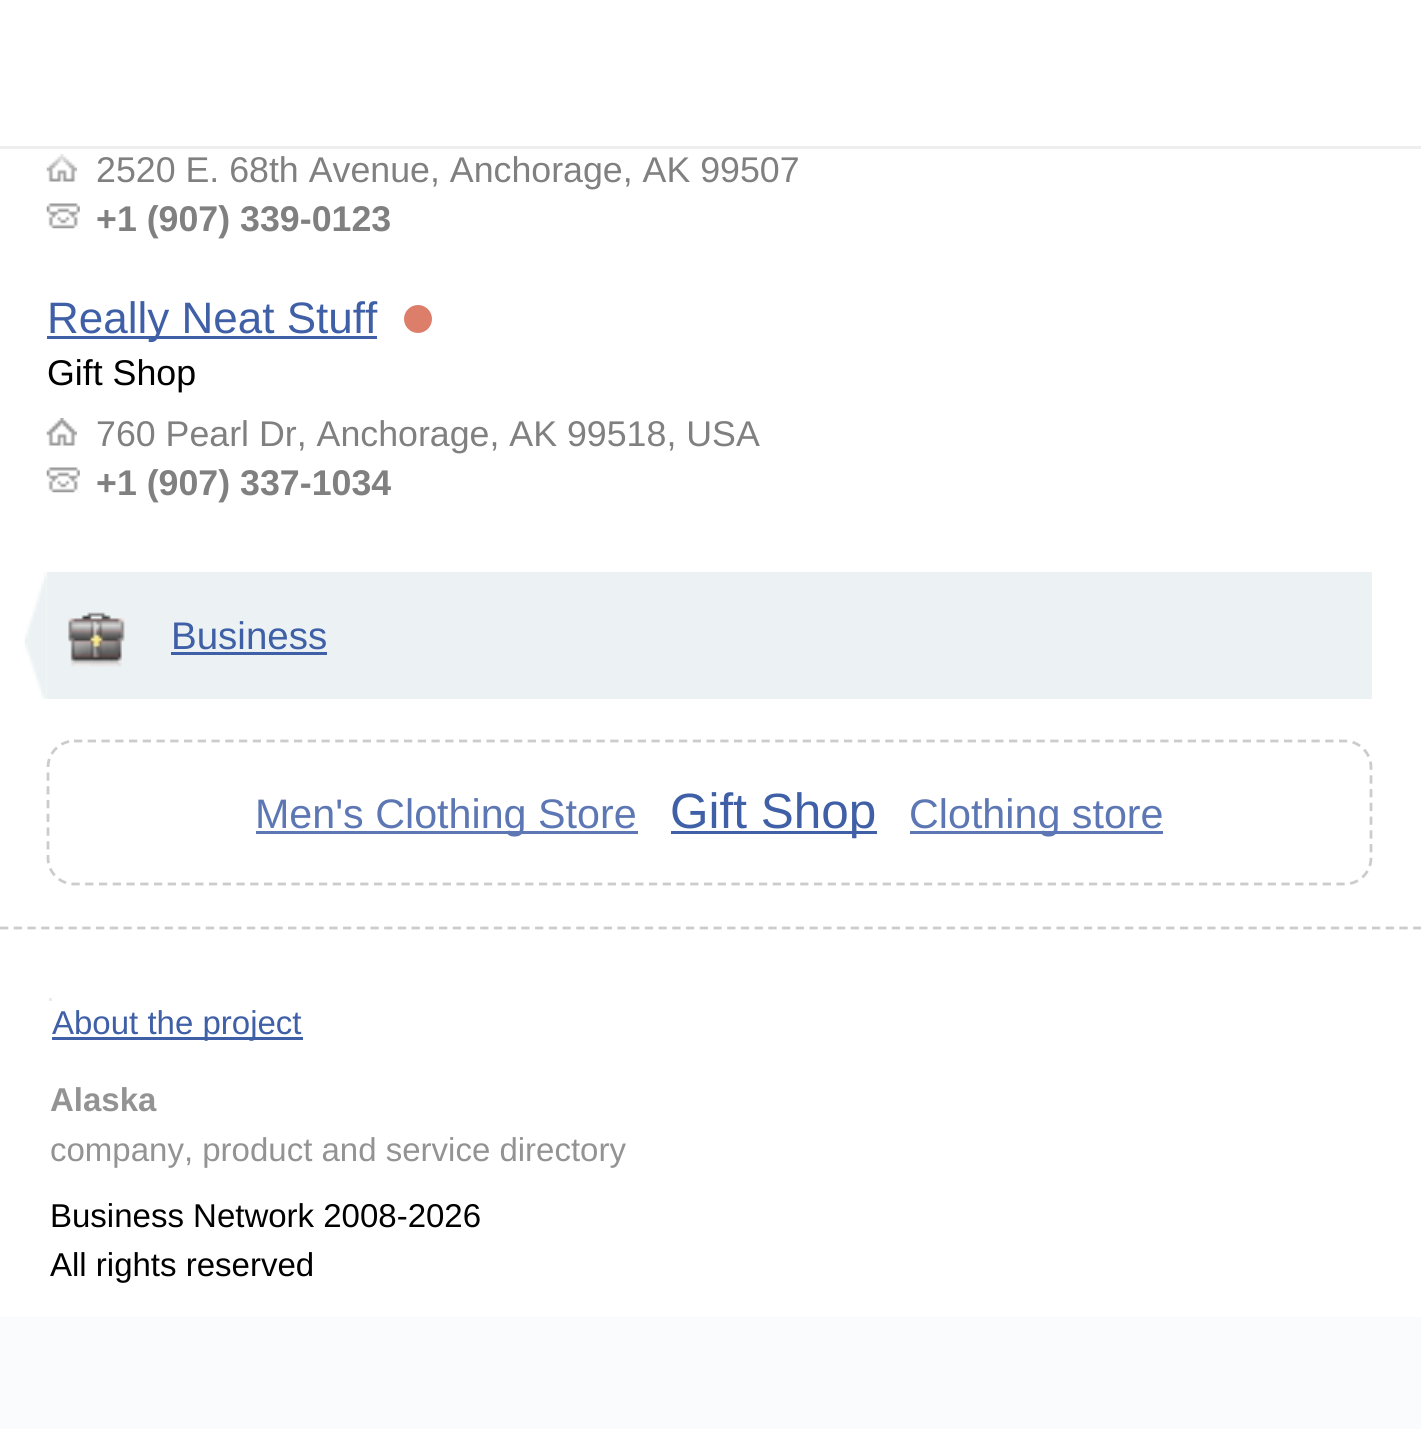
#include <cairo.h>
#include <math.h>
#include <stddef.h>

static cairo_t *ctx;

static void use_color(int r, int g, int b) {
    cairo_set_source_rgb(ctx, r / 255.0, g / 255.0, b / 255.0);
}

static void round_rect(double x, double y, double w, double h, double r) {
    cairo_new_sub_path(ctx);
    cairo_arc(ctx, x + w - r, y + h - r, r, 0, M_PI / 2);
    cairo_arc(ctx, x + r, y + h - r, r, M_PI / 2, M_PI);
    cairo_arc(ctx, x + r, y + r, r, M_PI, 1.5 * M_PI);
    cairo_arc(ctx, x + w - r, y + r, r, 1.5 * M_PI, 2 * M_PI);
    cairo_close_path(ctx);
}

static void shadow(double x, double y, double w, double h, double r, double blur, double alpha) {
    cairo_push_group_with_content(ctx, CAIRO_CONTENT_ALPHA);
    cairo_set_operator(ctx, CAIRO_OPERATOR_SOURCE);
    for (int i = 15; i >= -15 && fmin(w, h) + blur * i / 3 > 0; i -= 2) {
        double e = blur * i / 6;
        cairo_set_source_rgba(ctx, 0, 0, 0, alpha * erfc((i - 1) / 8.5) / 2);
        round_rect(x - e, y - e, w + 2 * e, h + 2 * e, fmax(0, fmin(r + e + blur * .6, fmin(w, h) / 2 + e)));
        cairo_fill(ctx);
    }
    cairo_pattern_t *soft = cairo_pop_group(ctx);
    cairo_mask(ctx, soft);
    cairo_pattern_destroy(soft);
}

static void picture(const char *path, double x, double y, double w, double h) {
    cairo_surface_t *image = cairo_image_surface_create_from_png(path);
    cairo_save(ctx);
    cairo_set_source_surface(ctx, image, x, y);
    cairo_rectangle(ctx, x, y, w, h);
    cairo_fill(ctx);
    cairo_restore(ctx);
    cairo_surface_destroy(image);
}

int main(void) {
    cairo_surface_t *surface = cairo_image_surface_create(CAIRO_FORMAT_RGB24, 1421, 1429);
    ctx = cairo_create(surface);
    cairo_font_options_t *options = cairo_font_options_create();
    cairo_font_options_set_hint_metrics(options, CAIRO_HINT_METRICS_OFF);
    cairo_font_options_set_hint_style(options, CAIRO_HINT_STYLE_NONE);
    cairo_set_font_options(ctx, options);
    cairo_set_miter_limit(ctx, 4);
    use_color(255, 255, 255);
    cairo_paint(ctx);
    picture("img1.png", 46, 154, 31, 28);
    shadow(0, 14, 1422, 148, 0, 7, 0.6);
    shadow(0, 52, 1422, 108, 0, 7, 0.6);
    use_color(238, 238, 238);
    cairo_rectangle(ctx, 0, 146, 1421, 3);
    cairo_fill(ctx);
    cairo_select_font_face(ctx, "Liberation Sans", CAIRO_FONT_SLANT_NORMAL, CAIRO_FONT_WEIGHT_NORMAL);
    cairo_set_font_size(ctx, 35.75);
    use_color(128, 128, 128);
    cairo_move_to(ctx, 96, 182);
    cairo_show_text(ctx, "2520 E. 68th Avenue, Anchorage, AK 99507");
    picture("img2.png", 46, 203, 34, 26);
    cairo_select_font_face(ctx, "Liberation Sans", CAIRO_FONT_SLANT_NORMAL, CAIRO_FONT_WEIGHT_BOLD);
    cairo_move_to(ctx, 96, 231);
    cairo_show_text(ctx, "+1 (907) 339-0123");
    use_color(63, 95, 166);
    cairo_rectangle(ctx, 47, 336, 330, 3);
    cairo_fill(ctx);
    cairo_select_font_face(ctx, "Liberation Sans", CAIRO_FONT_SLANT_NORMAL, CAIRO_FONT_WEIGHT_NORMAL);
    cairo_set_font_size(ctx, 44);
    cairo_move_to(ctx, 47, 333);
    cairo_show_text(ctx, "Really Neat Stuff");
    use_color(221, 126, 107);
    cairo_new_path(ctx);
    cairo_arc(ctx, 418, 319, 14, 0, 2 * M_PI);
    cairo_fill(ctx);
    cairo_set_font_size(ctx, 35.75);
    use_color(0, 0, 0);
    cairo_move_to(ctx, 47, 385);
    cairo_show_text(ctx, "Gift Shop");
    picture("img1.png", 46, 418, 31, 28);
    use_color(128, 128, 128);
    cairo_move_to(ctx, 96, 446);
    cairo_show_text(ctx, "760 Pearl Dr, Anchorage, AK 99518, USA");
    picture("img2.png", 46, 467, 34, 26);
    cairo_select_font_face(ctx, "Liberation Sans", CAIRO_FONT_SLANT_NORMAL, CAIRO_FONT_WEIGHT_BOLD);
    cairo_move_to(ctx, 96, 495);
    cairo_show_text(ctx, "+1 (907) 337-1034");
    use_color(236, 242, 244);
    cairo_rectangle(ctx, 47, 572, 1325, 127);
    cairo_fill(ctx);
    picture("img3.png", 24, 572, 23, 127);
    picture("img4.png", 68, 612, 57, 55);
    cairo_select_font_face(ctx, "Liberation Sans", CAIRO_FONT_SLANT_NORMAL, CAIRO_FONT_WEIGHT_NORMAL);
    cairo_set_font_size(ctx, 38.5);
    use_color(63, 95, 166);
    cairo_move_to(ctx, 171, 649);
    cairo_show_text(ctx, "Business");
    cairo_rectangle(ctx, 171, 652, 156, 3);
    cairo_fill(ctx);
    cairo_new_path(ctx);
    cairo_move_to(ctx, 74, 741);
    cairo_line_to(ctx, 1345, 741);
    cairo_curve_to(ctx, 1359, 741, 1371, 753, 1371, 767);
    cairo_line_to(ctx, 1371, 858);
    cairo_curve_to(ctx, 1371, 872.5, 1359, 884, 1345, 884);
    cairo_line_to(ctx, 74, 884);
    cairo_curve_to(ctx, 60, 884, 48, 872.5, 48, 858);
    cairo_line_to(ctx, 48, 767);
    cairo_curve_to(ctx, 48, 753, 60, 741, 74, 741);
    cairo_close_path(ctx);
    use_color(204, 204, 204);
    cairo_set_line_width(ctx, 2.8);
    cairo_set_dash(ctx, (double[]){8.25, 5.5}, 2, 0);
    cairo_stroke(ctx);
    use_color(92, 119, 179);
    cairo_rectangle(ctx, 256, 831, 382, 3);
    cairo_fill(ctx);
    cairo_set_font_size(ctx, 41.25);
    cairo_move_to(ctx, 255, 828);
    cairo_show_text(ctx, "Men's Clothing Store");
    use_color(63, 95, 166);
    cairo_rectangle(ctx, 671, 831, 206, 3);
    cairo_fill(ctx);
    cairo_set_font_size(ctx, 49.5);
    cairo_move_to(ctx, 670, 828);
    cairo_show_text(ctx, "Gift Shop");
    use_color(92, 119, 179);
    cairo_rectangle(ctx, 910, 831, 253, 3);
    cairo_fill(ctx);
    cairo_set_font_size(ctx, 41.25);
    cairo_move_to(ctx, 909, 828);
    cairo_show_text(ctx, "Clothing store");
    use_color(250, 251, 252);
    cairo_rectangle(ctx, 0, 1317, 1421, 112);
    cairo_fill(ctx);
    cairo_new_path(ctx);
    cairo_move_to(ctx, 0, 928);
    cairo_line_to(ctx, 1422, 928);
    use_color(204, 204, 204);
    cairo_set_dash(ctx, (double[]){8.25, 5.47}, 2, 0);
    cairo_stroke(ctx);
    use_color(235, 235, 235);
    cairo_rectangle(ctx, 49, 998, 3, 3);
    cairo_fill(ctx);
    use_color(63, 95, 166);
    cairo_rectangle(ctx, 52, 1037, 251, 3);
    cairo_fill(ctx);
    cairo_set_font_size(ctx, 33);
    cairo_move_to(ctx, 52, 1034);
    cairo_show_text(ctx, "About the project");
    cairo_select_font_face(ctx, "Liberation Sans", CAIRO_FONT_SLANT_NORMAL, CAIRO_FONT_WEIGHT_BOLD);
    use_color(147, 147, 147);
    cairo_move_to(ctx, 50, 1111);
    cairo_show_text(ctx, "Alaska");
    cairo_select_font_face(ctx, "Liberation Sans", CAIRO_FONT_SLANT_NORMAL, CAIRO_FONT_WEIGHT_NORMAL);
    cairo_move_to(ctx, 50, 1161);
    cairo_show_text(ctx, "company, product and service directory");
    use_color(0, 0, 0);
    cairo_move_to(ctx, 50, 1227);
    cairo_show_text(ctx, "Business Network 2008-2026");
    cairo_move_to(ctx, 50, 1276);
    cairo_show_text(ctx, "All rights reserved");
    cairo_surface_write_to_png(surface, "result.png");
    cairo_font_options_destroy(options);
    cairo_destroy(ctx);
    cairo_surface_destroy(surface);
    return 0;
}
